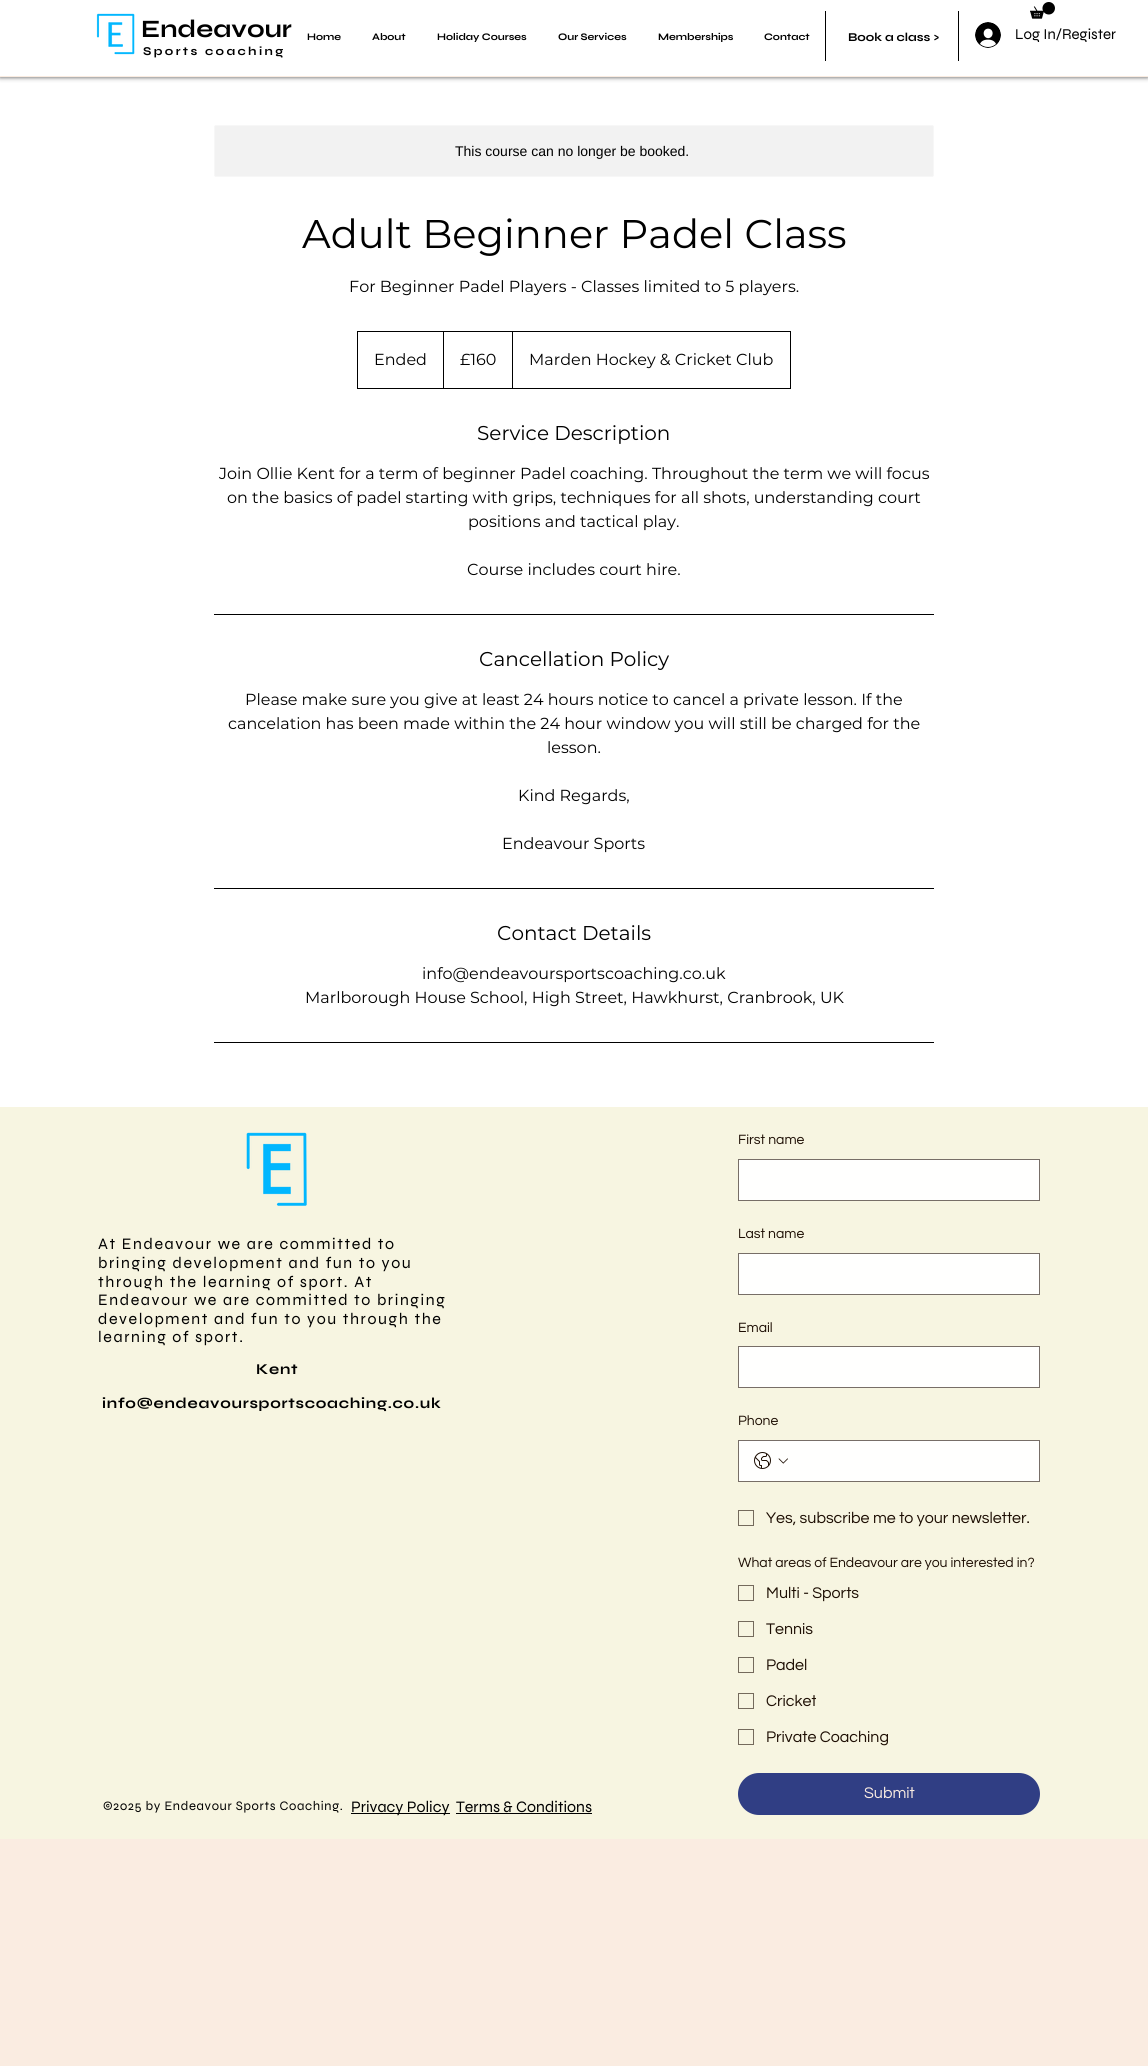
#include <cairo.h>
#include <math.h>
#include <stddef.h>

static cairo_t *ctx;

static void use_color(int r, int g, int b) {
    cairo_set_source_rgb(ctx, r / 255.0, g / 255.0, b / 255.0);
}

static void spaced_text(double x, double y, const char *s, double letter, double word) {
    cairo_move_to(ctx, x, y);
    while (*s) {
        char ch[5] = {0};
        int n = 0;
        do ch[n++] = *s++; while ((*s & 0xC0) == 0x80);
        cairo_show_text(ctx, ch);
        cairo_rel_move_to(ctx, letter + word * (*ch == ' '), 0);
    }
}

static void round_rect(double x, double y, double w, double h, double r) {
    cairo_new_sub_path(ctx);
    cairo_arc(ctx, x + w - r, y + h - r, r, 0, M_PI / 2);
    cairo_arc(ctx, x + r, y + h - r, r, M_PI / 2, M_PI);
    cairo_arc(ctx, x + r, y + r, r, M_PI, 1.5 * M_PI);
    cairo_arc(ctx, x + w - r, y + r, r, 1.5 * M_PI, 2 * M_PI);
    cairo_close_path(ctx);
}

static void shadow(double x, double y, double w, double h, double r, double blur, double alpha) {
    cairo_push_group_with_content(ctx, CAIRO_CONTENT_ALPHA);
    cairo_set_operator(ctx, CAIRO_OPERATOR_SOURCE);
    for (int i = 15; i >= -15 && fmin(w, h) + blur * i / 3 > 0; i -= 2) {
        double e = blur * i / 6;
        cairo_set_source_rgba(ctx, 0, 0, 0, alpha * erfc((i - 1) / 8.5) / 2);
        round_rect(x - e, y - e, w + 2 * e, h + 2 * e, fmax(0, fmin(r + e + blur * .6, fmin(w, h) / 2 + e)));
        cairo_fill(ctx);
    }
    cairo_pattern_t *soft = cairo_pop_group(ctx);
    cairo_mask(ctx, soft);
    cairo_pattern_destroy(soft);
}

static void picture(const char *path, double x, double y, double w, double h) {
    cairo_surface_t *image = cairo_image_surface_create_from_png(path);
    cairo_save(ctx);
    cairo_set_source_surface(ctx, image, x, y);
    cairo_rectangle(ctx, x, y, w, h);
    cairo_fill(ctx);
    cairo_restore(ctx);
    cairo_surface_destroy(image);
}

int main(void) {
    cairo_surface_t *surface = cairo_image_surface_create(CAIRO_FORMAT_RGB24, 1148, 2066);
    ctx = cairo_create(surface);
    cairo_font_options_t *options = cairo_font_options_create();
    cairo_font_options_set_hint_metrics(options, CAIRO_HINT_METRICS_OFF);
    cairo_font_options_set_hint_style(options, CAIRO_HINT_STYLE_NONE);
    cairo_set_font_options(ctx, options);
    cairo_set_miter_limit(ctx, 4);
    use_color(250, 236, 225);
    cairo_paint(ctx);
    use_color(255, 255, 255);
    cairo_rectangle(ctx, 0, 77, 1148, 1030);
    cairo_fill(ctx);
    use_color(0, 0, 0);
    shadow(0, 0, 1148, 77, 0, 2.5, 0.7);
    use_color(255, 255, 255);
    cairo_rectangle(ctx, 0, 0, 1148, 76);
    cairo_fill(ctx);
    use_color(250, 236, 225);
    cairo_rectangle(ctx, 0, 76, 1148, 1);
    cairo_fill(ctx);
    picture("img1.png", 96, 13, 39, 42);
    cairo_select_font_face(ctx, "Syne", CAIRO_FONT_SLANT_NORMAL, CAIRO_FONT_WEIGHT_BOLD);
    cairo_set_font_size(ctx, 25);
    use_color(0, 0, 0);
    cairo_move_to(ctx, 141, 37);
    cairo_show_text(ctx, "Endeavour");
    cairo_rectangle(ctx, 825, 11, 1, 50);
    cairo_fill(ctx);
    cairo_rectangle(ctx, 958, 11, 1, 50);
    cairo_fill(ctx);
    picture("img2.png", 1030, 2, 25, 17);
    cairo_set_font_size(ctx, 10);
    cairo_move_to(ctx, 307, 40);
    cairo_show_text(ctx, "Home");
    cairo_move_to(ctx, 372, 40);
    cairo_show_text(ctx, "About");
    cairo_move_to(ctx, 437, 40);
    cairo_show_text(ctx, "Holiday Courses");
    cairo_move_to(ctx, 558, 40);
    cairo_show_text(ctx, "Our Services");
    cairo_move_to(ctx, 658, 40);
    cairo_show_text(ctx, "Memberships");
    cairo_move_to(ctx, 764, 40);
    cairo_show_text(ctx, "Contact");
    cairo_set_font_size(ctx, 12);
    cairo_move_to(ctx, 848, 41);
    cairo_show_text(ctx, "Book a class >");
    picture("img3.png", 975, 22, 26, 26);
    cairo_select_font_face(ctx, "Syne", CAIRO_FONT_SLANT_NORMAL, CAIRO_FONT_WEIGHT_NORMAL);
    cairo_set_font_size(ctx, 15);
    cairo_move_to(ctx, 1015, 39);
    cairo_show_text(ctx, "Log In/Register");
    cairo_select_font_face(ctx, "Syne", CAIRO_FONT_SLANT_NORMAL, CAIRO_FONT_WEIGHT_BOLD);
    cairo_set_font_size(ctx, 12);
    spaced_text(143, 55, "Sports coaching", 2.4, 0);
    use_color(242, 242, 242);
    round_rect(214.5, 125.5, 719, 51, 1.5);
    cairo_fill_preserve(ctx);
    use_color(247, 247, 247);
    cairo_set_line_width(ctx, 1);
    cairo_stroke(ctx);
    cairo_select_font_face(ctx, "Liberation Sans", CAIRO_FONT_SLANT_NORMAL, CAIRO_FONT_WEIGHT_NORMAL);
    cairo_set_font_size(ctx, 14);
    use_color(0, 0, 0);
    cairo_move_to(ctx, 455, 156);
    cairo_show_text(ctx, "This course can no longer be booked.");
    cairo_select_font_face(ctx, "Montserrat", CAIRO_FONT_SLANT_NORMAL, CAIRO_FONT_WEIGHT_NORMAL);
    cairo_set_font_size(ctx, 40);
    cairo_move_to(ctx, 302, 248);
    cairo_show_text(ctx, "Adult Beginner Padel Class");
    cairo_set_font_size(ctx, 16);
    cairo_move_to(ctx, 349, 292);
    cairo_show_text(ctx, "For Beginner Padel Players - Classes limited to 5 players.");
    cairo_rectangle(ctx, 357.5, 331.5, 433, 57);
    cairo_stroke(ctx);
    cairo_move_to(ctx, 374, 365);
    cairo_show_text(ctx, "Ended");
    cairo_rectangle(ctx, 443, 332, 1, 56);
    cairo_fill(ctx);
    cairo_move_to(ctx, 460, 365);
    cairo_show_text(ctx, "£160");
    cairo_rectangle(ctx, 512, 332, 1, 56);
    cairo_fill(ctx);
    cairo_move_to(ctx, 529, 365);
    cairo_show_text(ctx, "Marden Hockey & Cricket Club");
    cairo_set_font_size(ctx, 20);
    cairo_move_to(ctx, 477, 440);
    cairo_show_text(ctx, "Service Description");
    cairo_set_font_size(ctx, 16);
    cairo_move_to(ctx, 219, 479);
    cairo_show_text(ctx, "Join Ollie Kent for a term of beginner Padel coaching. Throughout the term we will focus");
    cairo_move_to(ctx, 227, 503);
    cairo_show_text(ctx, "on the basics of padel starting with grips, techniques for all shots, understanding court");
    cairo_move_to(ctx, 468, 527);
    cairo_show_text(ctx, "positions and tactical play.");
    cairo_move_to(ctx, 467, 575);
    cairo_show_text(ctx, "Course includes court hire.");
    cairo_rectangle(ctx, 214, 614, 720, 1);
    cairo_fill(ctx);
    cairo_set_font_size(ctx, 20);
    cairo_move_to(ctx, 479, 666);
    cairo_show_text(ctx, "Cancellation Policy");
    cairo_set_font_size(ctx, 16);
    cairo_move_to(ctx, 245, 705);
    cairo_show_text(ctx, "Please make sure you give at least 24 hours notice to cancel a private lesson. If the");
    cairo_move_to(ctx, 228, 729);
    cairo_show_text(ctx, "cancelation has been made within the 24 hour window you will still be charged for the");
    cairo_move_to(ctx, 547, 753);
    cairo_show_text(ctx, "lesson.");
    cairo_move_to(ctx, 518, 801);
    cairo_show_text(ctx, "Kind Regards,");
    cairo_move_to(ctx, 502, 849);
    cairo_show_text(ctx, "Endeavour Sports");
    cairo_rectangle(ctx, 214, 888, 720, 1);
    cairo_fill(ctx);
    cairo_set_font_size(ctx, 20);
    cairo_move_to(ctx, 497, 940);
    cairo_show_text(ctx, "Contact Details");
    cairo_set_font_size(ctx, 16);
    cairo_move_to(ctx, 422, 979);
    cairo_show_text(ctx, "info@endeavoursportscoaching.co.uk");
    cairo_move_to(ctx, 305, 1003);
    cairo_show_text(ctx, "Marlborough House School, High Street, Hawkhurst, Cranbrook, UK");
    cairo_rectangle(ctx, 214, 1042, 720, 1);
    cairo_fill(ctx);
    use_color(247, 245, 225);
    cairo_rectangle(ctx, 0, 1107, 1148, 732);
    cairo_fill(ctx);
    picture("img4.png", 246, 1132, 61, 74);
    cairo_select_font_face(ctx, "Questrial", CAIRO_FONT_SLANT_NORMAL, CAIRO_FONT_WEIGHT_NORMAL);
    cairo_set_font_size(ctx, 14);
    use_color(29, 14, 3);
    cairo_move_to(ctx, 738, 1144);
    cairo_show_text(ctx, "First name");
    use_color(255, 255, 254);
    cairo_rectangle(ctx, 738.5, 1159.5, 301, 41);
    cairo_fill_preserve(ctx);
    use_color(119, 110, 103);
    cairo_stroke(ctx);
    use_color(29, 14, 3);
    cairo_move_to(ctx, 738, 1238);
    cairo_show_text(ctx, "Last name");
    use_color(255, 255, 254);
    cairo_rectangle(ctx, 738.5, 1253.5, 301, 41);
    cairo_fill_preserve(ctx);
    use_color(119, 110, 103);
    cairo_stroke(ctx);
    use_color(29, 14, 3);
    cairo_move_to(ctx, 738, 1332);
    cairo_show_text(ctx, "Email");
    use_color(255, 255, 254);
    cairo_rectangle(ctx, 738.5, 1346.5, 301, 41);
    cairo_fill_preserve(ctx);
    use_color(119, 110, 103);
    cairo_stroke(ctx);
    use_color(29, 14, 3);
    cairo_move_to(ctx, 738, 1425);
    cairo_show_text(ctx, "Phone");
    use_color(255, 255, 254);
    cairo_rectangle(ctx, 738.5, 1440.5, 301, 41);
    cairo_fill_preserve(ctx);
    use_color(119, 110, 103);
    cairo_stroke(ctx);
    picture("img5.png", 754, 1452, 17, 17);
    picture("img6.png", 778, 1458, 10, 6);
    cairo_rectangle(ctx, 738.5, 1510.5, 15, 15);
    use_color(116, 106, 92);
    cairo_stroke(ctx);
    cairo_set_font_size(ctx, 16);
    use_color(29, 14, 3);
    cairo_move_to(ctx, 766, 1523);
    cairo_show_text(ctx, "Yes, subscribe me to your newsletter.");
    cairo_set_font_size(ctx, 14);
    cairo_move_to(ctx, 738, 1567);
    cairo_show_text(ctx, "What areas of Endeavour are you interested in?");
    cairo_rectangle(ctx, 738.5, 1585.5, 15, 15);
    use_color(116, 106, 92);
    cairo_stroke(ctx);
    cairo_set_font_size(ctx, 16);
    use_color(29, 14, 3);
    cairo_move_to(ctx, 766, 1598);
    cairo_show_text(ctx, "Multi - Sports");
    cairo_rectangle(ctx, 738.5, 1621.5, 15, 15);
    use_color(116, 106, 92);
    cairo_stroke(ctx);
    use_color(29, 14, 3);
    cairo_move_to(ctx, 766, 1634);
    cairo_show_text(ctx, "Tennis");
    cairo_rectangle(ctx, 738.5, 1657.5, 15, 15);
    use_color(116, 106, 92);
    cairo_stroke(ctx);
    use_color(29, 14, 3);
    cairo_move_to(ctx, 766, 1670);
    cairo_show_text(ctx, "Padel");
    cairo_rectangle(ctx, 738.5, 1693.5, 15, 15);
    use_color(116, 106, 92);
    cairo_stroke(ctx);
    use_color(29, 14, 3);
    cairo_move_to(ctx, 766, 1706);
    cairo_show_text(ctx, "Cricket");
    cairo_rectangle(ctx, 738.5, 1729.5, 15, 15);
    use_color(116, 106, 92);
    cairo_stroke(ctx);
    use_color(29, 14, 3);
    cairo_move_to(ctx, 766, 1742);
    cairo_show_text(ctx, "Private Coaching");
    use_color(48, 62, 132);
    round_rect(738, 1773, 302, 42, 21);
    cairo_fill(ctx);
    use_color(250, 236, 225);
    cairo_move_to(ctx, 864, 1798);
    cairo_show_text(ctx, "Submit");
    cairo_select_font_face(ctx, "Syne", CAIRO_FONT_SLANT_NORMAL, CAIRO_FONT_WEIGHT_NORMAL);
    use_color(0, 0, 0);
    spaced_text(98, 1249, "At Endeavour we are committed to", 1.6, 0);
    spaced_text(98, 1268, "bringing development and fun to you", 1.6, 0);
    spaced_text(98, 1287, "through the learning of sport. At", 1.6, 0);
    spaced_text(98, 1305, "Endeavour we are committed to bringing", 1.6, 0);
    spaced_text(98, 1324, "development and fun to you through the", 1.6, 0);
    spaced_text(98, 1342, "learning of sport.", 1.6, 0);
    cairo_select_font_face(ctx, "Syne", CAIRO_FONT_SLANT_NORMAL, CAIRO_FONT_WEIGHT_BOLD);
    cairo_set_font_size(ctx, 15);
    spaced_text(256, 1374, "Kent", 0.75, 0);
    spaced_text(102, 1408, "info@endeavoursportscoaching.co.uk", 0.75, 0);
    cairo_select_font_face(ctx, "Syne", CAIRO_FONT_SLANT_NORMAL, CAIRO_FONT_WEIGHT_NORMAL);
    cairo_set_font_size(ctx, 13);
    spaced_text(103, 1810, "©2025 by Endeavour Sports Coaching.", 0.65, 0);
    cairo_rectangle(ctx, 351, 1813, 99, 1);
    cairo_fill(ctx);
    cairo_set_font_size(ctx, 16);
    cairo_move_to(ctx, 351, 1812);
    cairo_show_text(ctx, "Privacy Policy");
    cairo_move_to(ctx, 456, 1812);
    cairo_show_text(ctx, "Terms & Conditions");
    cairo_rectangle(ctx, 456, 1813, 136, 1);
    cairo_fill(ctx);
    cairo_surface_write_to_png(surface, "result.png");
    cairo_font_options_destroy(options);
    cairo_destroy(ctx);
    cairo_surface_destroy(surface);
    return 0;
}
